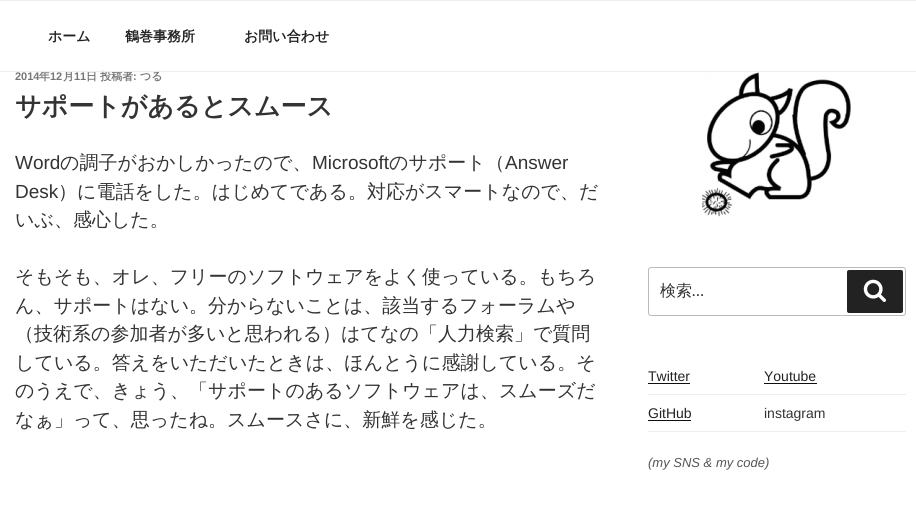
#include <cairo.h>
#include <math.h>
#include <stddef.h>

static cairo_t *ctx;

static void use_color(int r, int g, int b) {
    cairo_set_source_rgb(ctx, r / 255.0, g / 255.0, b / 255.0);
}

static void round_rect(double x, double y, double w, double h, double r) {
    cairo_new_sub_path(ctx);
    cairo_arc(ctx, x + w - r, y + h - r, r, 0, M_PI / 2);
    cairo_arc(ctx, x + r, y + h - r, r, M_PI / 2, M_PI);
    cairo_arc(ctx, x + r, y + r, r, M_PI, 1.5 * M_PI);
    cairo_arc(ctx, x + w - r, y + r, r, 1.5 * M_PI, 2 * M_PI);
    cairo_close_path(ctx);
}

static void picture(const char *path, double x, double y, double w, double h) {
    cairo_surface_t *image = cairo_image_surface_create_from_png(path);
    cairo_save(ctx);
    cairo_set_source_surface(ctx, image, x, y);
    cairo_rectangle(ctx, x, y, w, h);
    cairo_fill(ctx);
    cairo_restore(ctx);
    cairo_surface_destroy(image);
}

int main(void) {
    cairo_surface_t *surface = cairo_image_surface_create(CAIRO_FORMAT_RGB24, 916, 507);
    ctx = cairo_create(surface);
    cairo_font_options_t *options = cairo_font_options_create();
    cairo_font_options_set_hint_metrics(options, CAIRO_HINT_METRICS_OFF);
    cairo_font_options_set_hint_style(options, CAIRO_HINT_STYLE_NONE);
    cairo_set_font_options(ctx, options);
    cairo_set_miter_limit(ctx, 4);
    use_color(255, 255, 255);
    cairo_paint(ctx);
    cairo_select_font_face(ctx, "WenQuanYi Zen Hei", CAIRO_FONT_SLANT_NORMAL, CAIRO_FONT_WEIGHT_BOLD);
    cairo_set_font_size(ctx, 11);
    use_color(118, 118, 118);
    cairo_move_to(ctx, 86, 80);
    cairo_show_text(ctx, "日 投稿者");
    use_color(255, 255, 255);
    cairo_rectangle(ctx, 117, 70, 11, 1);
    cairo_fill(ctx);
    use_color(238, 238, 238);
    cairo_rectangle(ctx, 0, 0, 916, 1);
    cairo_fill(ctx);
    cairo_select_font_face(ctx, "Liberation Sans", CAIRO_FONT_SLANT_NORMAL, CAIRO_FONT_WEIGHT_BOLD);
    use_color(118, 118, 118);
    cairo_move_to(ctx, 15, 80);
    cairo_show_text(ctx, "2014");
    cairo_select_font_face(ctx, "WenQuanYi Zen Hei", CAIRO_FONT_SLANT_NORMAL, CAIRO_FONT_WEIGHT_BOLD);
    cairo_move_to(ctx, 39, 80);
    cairo_show_text(ctx, "年");
    cairo_move_to(ctx, 63, 80);
    cairo_show_text(ctx, "月");
    use_color(238, 238, 238);
    cairo_rectangle(ctx, 0, 71, 916, 1);
    cairo_fill(ctx);
    cairo_set_font_size(ctx, 14);
    use_color(34, 34, 34);
    cairo_move_to(ctx, 48, 41);
    cairo_show_text(ctx, "ホーム");
    cairo_move_to(ctx, 125, 41);
    cairo_show_text(ctx, "鶴巻事務所");
    cairo_move_to(ctx, 244, 41);
    cairo_show_text(ctx, "お問い合わせ");
    cairo_select_font_face(ctx, "Liberation Sans", CAIRO_FONT_SLANT_NORMAL, CAIRO_FONT_WEIGHT_BOLD);
    cairo_set_font_size(ctx, 11);
    use_color(118, 118, 118);
    cairo_move_to(ctx, 50, 80);
    cairo_show_text(ctx, "12");
    cairo_move_to(ctx, 74, 80);
    cairo_show_text(ctx, "11");
    cairo_move_to(ctx, 133, 80);
    cairo_show_text(ctx, ":");
    cairo_select_font_face(ctx, "WenQuanYi Zen Hei", CAIRO_FONT_SLANT_NORMAL, CAIRO_FONT_WEIGHT_BOLD);
    cairo_move_to(ctx, 140, 80);
    cairo_show_text(ctx, "つる");
    cairo_set_font_size(ctx, 26);
    use_color(51, 51, 51);
    cairo_move_to(ctx, 15, 115);
    cairo_show_text(ctx, "サポートがあるとスムース");
    cairo_select_font_face(ctx, "Liberation Sans", CAIRO_FONT_SLANT_NORMAL, CAIRO_FONT_WEIGHT_NORMAL);
    cairo_set_font_size(ctx, 19);
    cairo_move_to(ctx, 15, 169);
    cairo_show_text(ctx, "Word");
    cairo_select_font_face(ctx, "WenQuanYi Zen Hei Medium", CAIRO_FONT_SLANT_NORMAL, CAIRO_FONT_WEIGHT_NORMAL);
    cairo_move_to(ctx, 60, 169);
    cairo_show_text(ctx, "の調子がおかしかったので、");
    cairo_select_font_face(ctx, "Liberation Sans", CAIRO_FONT_SLANT_NORMAL, CAIRO_FONT_WEIGHT_NORMAL);
    cairo_move_to(ctx, 312, 169);
    cairo_show_text(ctx, "Microsoft");
    cairo_select_font_face(ctx, "WenQuanYi Zen Hei Medium", CAIRO_FONT_SLANT_NORMAL, CAIRO_FONT_WEIGHT_NORMAL);
    cairo_move_to(ctx, 389, 169);
    cairo_show_text(ctx, "のサポート（");
    cairo_select_font_face(ctx, "Liberation Sans", CAIRO_FONT_SLANT_NORMAL, CAIRO_FONT_WEIGHT_NORMAL);
    cairo_move_to(ctx, 505, 169);
    cairo_show_text(ctx, "Answer");
    cairo_move_to(ctx, 15, 198);
    cairo_show_text(ctx, "Desk");
    cairo_select_font_face(ctx, "WenQuanYi Zen Hei Medium", CAIRO_FONT_SLANT_NORMAL, CAIRO_FONT_WEIGHT_NORMAL);
    cairo_move_to(ctx, 58, 198);
    cairo_show_text(ctx, "）に電話をした。はじめてである。対応がスマートなので、だ");
    cairo_move_to(ctx, 15, 226);
    cairo_show_text(ctx, "いぶ、感心した。");
    cairo_move_to(ctx, 15, 283);
    cairo_show_text(ctx, "そもそも、オレ、フリーのソフトウェアをよく使っている。もちろ");
    cairo_move_to(ctx, 15, 312);
    cairo_show_text(ctx, "ん、サポートはない。分からないことは、該当するフォーラムや");
    cairo_move_to(ctx, 15, 340);
    cairo_show_text(ctx, "（技術系の参加者が多いと思われる）はてなの「人力検索」で質問");
    cairo_move_to(ctx, 15, 369);
    cairo_show_text(ctx, "している。答えをいただいたときは、ほんとうに感謝している。そ");
    cairo_move_to(ctx, 15, 397);
    cairo_show_text(ctx, "のうえで、きょう、「サポートのあるソフトウェアは、スムーズだ");
    cairo_move_to(ctx, 15, 426);
    cairo_show_text(ctx, "なぁ」って、思ったね。スムースさに、新鮮を感じた。");
    picture("img1.png", 702, 72, 149, 145);
    round_rect(648.5, 267.5, 257, 48, 2.5);
    use_color(187, 187, 187);
    cairo_set_line_width(ctx, 1);
    cairo_stroke(ctx);
    cairo_set_font_size(ctx, 16);
    use_color(51, 51, 51);
    cairo_move_to(ctx, 660, 296);
    cairo_show_text(ctx, "検索");
    cairo_select_font_face(ctx, "Libre Franklin", CAIRO_FONT_SLANT_NORMAL, CAIRO_FONT_WEIGHT_NORMAL);
    cairo_move_to(ctx, 692, 296);
    cairo_show_text(ctx, "…");
    use_color(34, 34, 34);
    round_rect(847, 270, 56, 43, 2);
    cairo_fill(ctx);
    picture("img2.png", 863, 279, 23, 23);
    use_color(238, 238, 238);
    cairo_rectangle(ctx, 648, 394, 258, 1);
    cairo_fill(ctx);
    cairo_select_font_face(ctx, "Liberation Sans", CAIRO_FONT_SLANT_NORMAL, CAIRO_FONT_WEIGHT_NORMAL);
    cairo_set_font_size(ctx, 14);
    use_color(34, 34, 34);
    cairo_move_to(ctx, 648, 381);
    cairo_show_text(ctx, "Twitter");
    use_color(15, 15, 15);
    cairo_rectangle(ctx, 648, 383, 42, 1);
    cairo_fill(ctx);
    use_color(34, 34, 34);
    cairo_move_to(ctx, 764, 381);
    cairo_show_text(ctx, "Youtube");
    use_color(15, 15, 15);
    cairo_rectangle(ctx, 764, 383, 53, 1);
    cairo_fill(ctx);
    use_color(238, 238, 238);
    cairo_rectangle(ctx, 648, 431, 258, 1);
    cairo_fill(ctx);
    use_color(34, 34, 34);
    cairo_move_to(ctx, 648, 418);
    cairo_show_text(ctx, "GitHub");
    use_color(15, 15, 15);
    cairo_rectangle(ctx, 648, 420, 43, 1);
    cairo_fill(ctx);
    use_color(51, 51, 51);
    cairo_move_to(ctx, 764, 418);
    cairo_show_text(ctx, "instagram");
    cairo_select_font_face(ctx, "Liberation Sans", CAIRO_FONT_SLANT_ITALIC, CAIRO_FONT_WEIGHT_NORMAL);
    cairo_set_font_size(ctx, 13);
    use_color(85, 85, 85);
    cairo_move_to(ctx, 648, 467);
    cairo_show_text(ctx, "(my SNS & my code)");
    cairo_surface_write_to_png(surface, "result.png");
    cairo_font_options_destroy(options);
    cairo_destroy(ctx);
    cairo_surface_destroy(surface);
    return 0;
}
